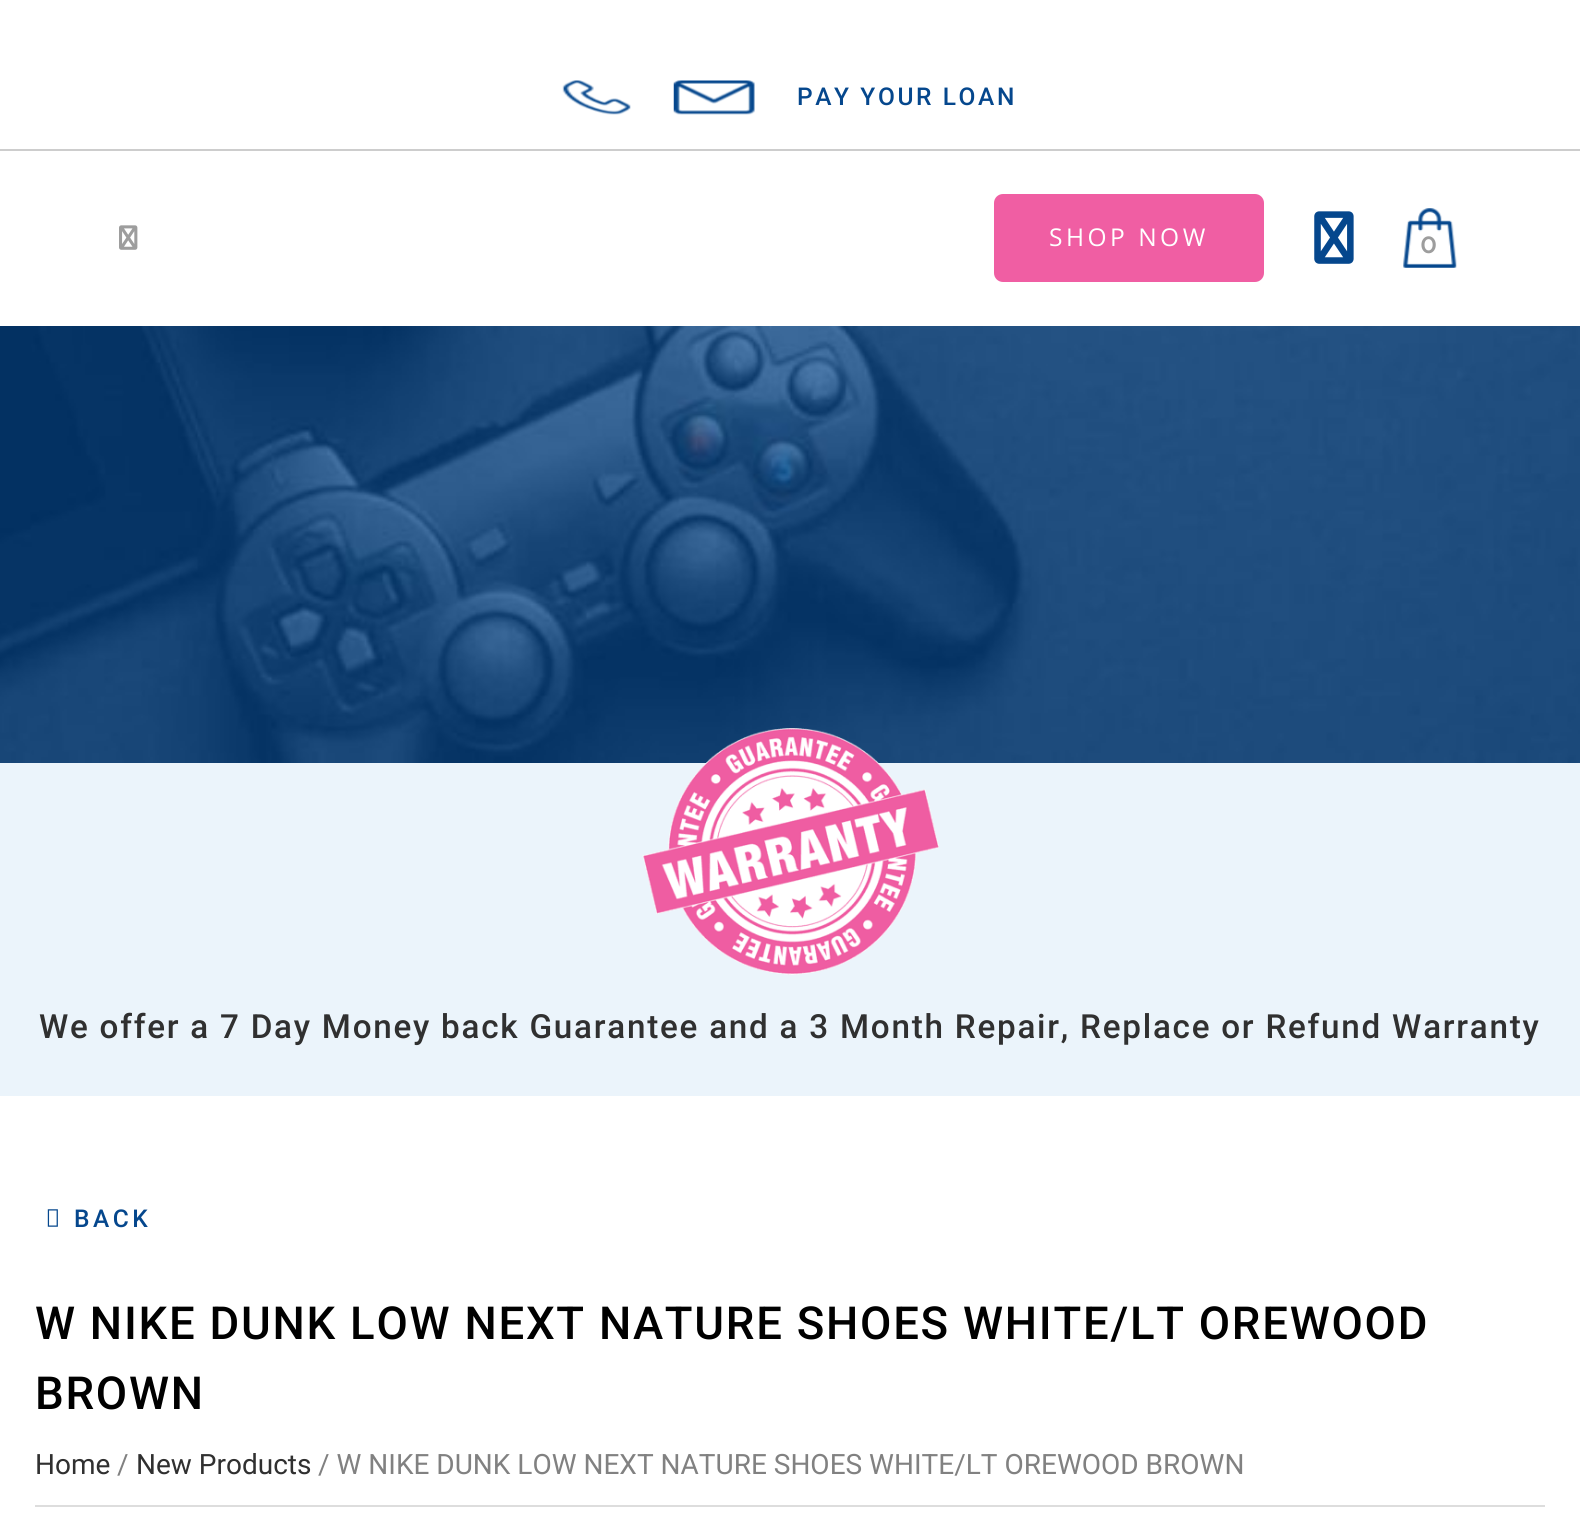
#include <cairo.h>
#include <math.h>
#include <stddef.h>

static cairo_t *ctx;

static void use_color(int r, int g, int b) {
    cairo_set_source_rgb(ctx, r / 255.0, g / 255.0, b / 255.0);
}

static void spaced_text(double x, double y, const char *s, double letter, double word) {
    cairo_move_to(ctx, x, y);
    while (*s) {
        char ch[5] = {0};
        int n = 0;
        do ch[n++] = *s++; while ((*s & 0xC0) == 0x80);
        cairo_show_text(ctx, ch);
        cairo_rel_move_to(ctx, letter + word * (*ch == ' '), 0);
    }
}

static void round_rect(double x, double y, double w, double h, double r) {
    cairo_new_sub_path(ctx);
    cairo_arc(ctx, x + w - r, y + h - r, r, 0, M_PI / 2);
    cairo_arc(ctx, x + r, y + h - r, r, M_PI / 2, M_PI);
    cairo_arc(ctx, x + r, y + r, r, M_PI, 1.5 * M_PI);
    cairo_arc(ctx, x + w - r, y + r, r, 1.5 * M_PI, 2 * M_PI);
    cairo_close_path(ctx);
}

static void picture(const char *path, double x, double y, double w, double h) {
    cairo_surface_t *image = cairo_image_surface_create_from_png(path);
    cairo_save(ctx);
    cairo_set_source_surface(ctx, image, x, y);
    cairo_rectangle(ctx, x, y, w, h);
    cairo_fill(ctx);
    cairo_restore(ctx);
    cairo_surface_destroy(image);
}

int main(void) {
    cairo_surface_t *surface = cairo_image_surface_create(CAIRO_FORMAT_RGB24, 1580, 1537);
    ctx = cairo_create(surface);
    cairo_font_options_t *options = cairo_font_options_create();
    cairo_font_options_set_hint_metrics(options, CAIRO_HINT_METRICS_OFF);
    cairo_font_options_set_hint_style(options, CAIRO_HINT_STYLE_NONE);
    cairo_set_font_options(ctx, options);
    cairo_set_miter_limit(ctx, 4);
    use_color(255, 255, 255);
    cairo_paint(ctx);
    use_color(205, 205, 205);
    cairo_rectangle(ctx, 0, 149, 1580, 2);
    cairo_fill(ctx);
    picture("img1.png", 562, 80, 69, 35);
    picture("img2.png", 673, 80, 82, 35);
    cairo_select_font_face(ctx, "Roboto Medium", CAIRO_FONT_SLANT_NORMAL, CAIRO_FONT_WEIGHT_NORMAL);
    cairo_set_font_size(ctx, 24.5);
    use_color(5, 71, 141);
    spaced_text(797, 105, "PAY YOUR LOAN", 2.6, 0);
    picture("img3.png", 119, 225, 19, 25);
    use_color(240, 94, 163);
    round_rect(995, 195, 268, 86, 8);
    cairo_fill_preserve(ctx);
    cairo_stroke(ctx);
    cairo_select_font_face(ctx, "Open Sans", CAIRO_FONT_SLANT_NORMAL, CAIRO_FONT_WEIGHT_NORMAL);
    use_color(255, 255, 255);
    spaced_text(1049, 246, "SHOP NOW", 3.5, 0);
    picture("img4.png", 1314, 211, 40, 53);
    picture("img5.png", 1403, 208, 54, 60);
    cairo_select_font_face(ctx, "Raleway SemiBold", CAIRO_FONT_SLANT_NORMAL, CAIRO_FONT_WEIGHT_NORMAL);
    cairo_set_font_size(ctx, 28);
    use_color(157, 157, 157);
    cairo_move_to(ctx, 1420, 253);
    cairo_show_text(ctx, "0");
    picture("img6.png", 0, 326, 1580, 437);
    use_color(235, 244, 251);
    cairo_rectangle(ctx, 0, 763, 1580, 333);
    cairo_fill(ctx);
    picture("img7.png", 642, 728, 297, 247);
    cairo_select_font_face(ctx, "Roboto Medium", CAIRO_FONT_SLANT_NORMAL, CAIRO_FONT_WEIGHT_NORMAL);
    cairo_set_font_size(ctx, 33.25);
    use_color(48, 48, 48);
    spaced_text(39, 1038, "We offer a 7 Day Money back Guarantee and a 3 Month Repair, Replace or Refund Warranty", 1.75, 0);
    picture("img8.png", 47, 1209, 11, 18);
    cairo_set_font_size(ctx, 24.5);
    use_color(5, 71, 141);
    spaced_text(74, 1227, "BACK", 3.5, 0);
    cairo_set_font_size(ctx, 45.5);
    use_color(0, 0, 0);
    spaced_text(35, 1339, "W NIKE DUNK LOW NEXT NATURE SHOES WHITE/LT OREWOOD", 1.75, 0);
    spaced_text(35, 1409, "BROWN", 1.75, 0);
    cairo_select_font_face(ctx, "Roboto", CAIRO_FONT_SLANT_NORMAL, CAIRO_FONT_WEIGHT_NORMAL);
    cairo_set_font_size(ctx, 28);
    use_color(48, 48, 48);
    cairo_move_to(ctx, 35, 1474);
    cairo_show_text(ctx, "Home");
    use_color(129, 129, 129);
    cairo_move_to(ctx, 117, 1474);
    cairo_show_text(ctx, "/");
    use_color(48, 48, 48);
    cairo_move_to(ctx, 136, 1474);
    cairo_show_text(ctx, "New Products");
    use_color(129, 129, 129);
    cairo_move_to(ctx, 318, 1474);
    cairo_show_text(ctx, "/ W NIKE DUNK LOW NEXT NATURE SHOES WHITE/LT OREWOOD BROWN");
    use_color(221, 221, 221);
    cairo_rectangle(ctx, 35, 1505, 1510, 2);
    cairo_fill(ctx);
    cairo_surface_write_to_png(surface, "result.png");
    cairo_font_options_destroy(options);
    cairo_destroy(ctx);
    cairo_surface_destroy(surface);
    return 0;
}
